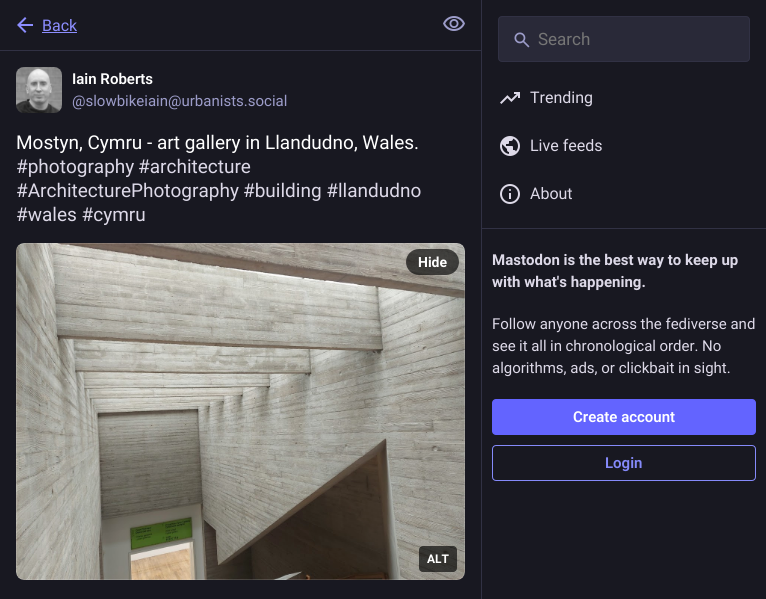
#include <cairo.h>
#include <math.h>
#include <stddef.h>

static cairo_t *ctx;

static void use_color(int r, int g, int b) {
    cairo_set_source_rgb(ctx, r / 255.0, g / 255.0, b / 255.0);
}

static void spaced_text(double x, double y, const char *s, double letter, double word) {
    cairo_move_to(ctx, x, y);
    while (*s) {
        char ch[5] = {0};
        int n = 0;
        do ch[n++] = *s++; while ((*s & 0xC0) == 0x80);
        cairo_show_text(ctx, ch);
        cairo_rel_move_to(ctx, letter + word * (*ch == ' '), 0);
    }
}

static void round_rect(double x, double y, double w, double h, double r) {
    cairo_new_sub_path(ctx);
    cairo_arc(ctx, x + w - r, y + h - r, r, 0, M_PI / 2);
    cairo_arc(ctx, x + r, y + h - r, r, M_PI / 2, M_PI);
    cairo_arc(ctx, x + r, y + r, r, M_PI, 1.5 * M_PI);
    cairo_arc(ctx, x + w - r, y + r, r, 1.5 * M_PI, 2 * M_PI);
    cairo_close_path(ctx);
}

static void picture(const char *path, double x, double y, double w, double h) {
    cairo_surface_t *image = cairo_image_surface_create_from_png(path);
    cairo_save(ctx);
    cairo_set_source_surface(ctx, image, x, y);
    cairo_rectangle(ctx, x, y, w, h);
    cairo_fill(ctx);
    cairo_restore(ctx);
    cairo_surface_destroy(image);
}

int main(void) {
    cairo_surface_t *surface = cairo_image_surface_create(CAIRO_FORMAT_RGB24, 766, 599);
    ctx = cairo_create(surface);
    cairo_font_options_t *options = cairo_font_options_create();
    cairo_font_options_set_hint_metrics(options, CAIRO_HINT_METRICS_OFF);
    cairo_font_options_set_hint_style(options, CAIRO_HINT_STYLE_NONE);
    cairo_set_font_options(ctx, options);
    cairo_set_miter_limit(ctx, 4);
    use_color(24, 24, 33);
    cairo_paint(ctx);
    use_color(49, 49, 68);
    cairo_rectangle(ctx, 0, 50, 481, 1);
    cairo_fill(ctx);
    picture("img1.png", 17, 17, 16, 16);
    cairo_select_font_face(ctx, "Roboto", CAIRO_FONT_SLANT_NORMAL, CAIRO_FONT_WEIGHT_NORMAL);
    cairo_set_font_size(ctx, 16);
    use_color(140, 141, 255);
    cairo_move_to(ctx, 42, 31);
    cairo_show_text(ctx, "Back");
    cairo_rectangle(ctx, 42, 32, 35, 1);
    cairo_fill(ctx);
    picture("img2.png", 443, 16, 22, 15);
    use_color(32, 32, 44);
    round_rect(16, 67, 46, 46, 8);
    cairo_fill(ctx);
    picture("img3.png", 16, 67, 46, 46);
    cairo_select_font_face(ctx, "Roboto SemiBold", CAIRO_FONT_SLANT_NORMAL, CAIRO_FONT_WEIGHT_NORMAL);
    cairo_set_font_size(ctx, 15);
    use_color(255, 255, 255);
    cairo_move_to(ctx, 72, 84);
    cairo_show_text(ctx, "Iain Roberts");
    cairo_select_font_face(ctx, "Roboto", CAIRO_FONT_SLANT_NORMAL, CAIRO_FONT_WEIGHT_NORMAL);
    use_color(156, 156, 201);
    cairo_move_to(ctx, 72, 106);
    cairo_show_text(ctx, "@slowbikeiain@urbanists.social");
    cairo_set_font_size(ctx, 19);
    use_color(255, 255, 255);
    cairo_move_to(ctx, 16, 149);
    cairo_show_text(ctx, "Mostyn, Cymru - art gallery in Llandudno, Wales.");
    use_color(221, 217, 232);
    cairo_move_to(ctx, 16, 173);
    cairo_show_text(ctx, "#photography");
    cairo_move_to(ctx, 138, 173);
    cairo_show_text(ctx, "#architecture");
    cairo_move_to(ctx, 16, 197);
    cairo_show_text(ctx, "#ArchitecturePhotography");
    cairo_move_to(ctx, 243, 197);
    cairo_show_text(ctx, "#building #llandudno");
    cairo_move_to(ctx, 16, 221);
    cairo_show_text(ctx, "#wales #cymru");
    picture("img4.png", 16, 243, 449, 337);
    round_rect(16.5, 243.5, 448, 336, 7.5);
    cairo_set_source_rgba(ctx, 0.988, 0.973, 1, 0.15);
    cairo_set_line_width(ctx, 1);
    cairo_stroke(ctx);
    cairo_set_source_rgba(ctx, 0, 0, 0, 0.65);
    round_rect(406, 249, 53, 26, 13);
    cairo_fill(ctx);
    cairo_select_font_face(ctx, "Roboto", CAIRO_FONT_SLANT_NORMAL, CAIRO_FONT_WEIGHT_BOLD);
    cairo_set_font_size(ctx, 14);
    use_color(255, 255, 255);
    cairo_move_to(ctx, 418, 267);
    cairo_show_text(ctx, "Hide");
    cairo_set_source_rgba(ctx, 0, 0, 0, 0.65);
    round_rect(419, 546, 38, 26, 4);
    cairo_fill(ctx);
    cairo_set_font_size(ctx, 12);
    use_color(255, 255, 255);
    cairo_move_to(ctx, 427, 563);
    cairo_show_text(ctx, "ALT");
    use_color(49, 49, 68);
    cairo_rectangle(ctx, 481, 0, 1, 599);
    cairo_fill(ctx);
    use_color(41, 41, 56);
    round_rect(498.5, 16.5, 251, 45, 3.5);
    cairo_fill_preserve(ctx);
    use_color(49, 49, 68);
    cairo_stroke(ctx);
    picture("img5.png", 514, 32, 16, 16);
    cairo_select_font_face(ctx, "Roboto", CAIRO_FONT_SLANT_NORMAL, CAIRO_FONT_WEIGHT_NORMAL);
    cairo_set_font_size(ctx, 17);
    use_color(117, 117, 117);
    cairo_move_to(ctx, 538, 45);
    cairo_show_text(ctx, "Search");
    picture("img6.png", 500, 92, 20, 12);
    cairo_set_font_size(ctx, 16);
    use_color(221, 217, 232);
    cairo_move_to(ctx, 530, 103);
    cairo_show_text(ctx, "Trending");
    picture("img7.png", 500, 136, 20, 20);
    cairo_move_to(ctx, 530, 151);
    cairo_show_text(ctx, "Live feeds");
    picture("img8.png", 500, 184, 20, 20);
    cairo_move_to(ctx, 530, 199);
    cairo_show_text(ctx, "About");
    use_color(49, 49, 68);
    cairo_rectangle(ctx, 482, 228, 284, 1);
    cairo_fill(ctx);
    cairo_select_font_face(ctx, "Roboto", CAIRO_FONT_SLANT_NORMAL, CAIRO_FONT_WEIGHT_BOLD);
    cairo_set_font_size(ctx, 15);
    use_color(221, 217, 232);
    cairo_move_to(ctx, 492, 265);
    cairo_show_text(ctx, "Mastodon is the best way to keep up");
    cairo_move_to(ctx, 492, 287);
    cairo_show_text(ctx, "with what's happening.");
    cairo_select_font_face(ctx, "Roboto", CAIRO_FONT_SLANT_NORMAL, CAIRO_FONT_WEIGHT_NORMAL);
    cairo_move_to(ctx, 492, 329);
    cairo_show_text(ctx, "Follow anyone across the fediverse and");
    spaced_text(492, 351, "see it all in chronological order. No", 0, -0.25);
    cairo_move_to(ctx, 492, 373);
    cairo_show_text(ctx, "algorithms, ads, or clickbait in sight.");
    use_color(99, 100, 255);
    round_rect(492, 399, 264, 36, 4);
    cairo_fill(ctx);
    cairo_select_font_face(ctx, "Roboto SemiBold", CAIRO_FONT_SLANT_NORMAL, CAIRO_FONT_WEIGHT_NORMAL);
    use_color(255, 255, 255);
    cairo_move_to(ctx, 573, 422);
    cairo_show_text(ctx, "Create account");
    round_rect(492.5, 445.5, 263, 35, 3.5);
    use_color(133, 138, 250);
    cairo_stroke(ctx);
    cairo_move_to(ctx, 605, 468);
    cairo_show_text(ctx, "Login");
    cairo_surface_write_to_png(surface, "result.png");
    cairo_font_options_destroy(options);
    cairo_destroy(ctx);
    cairo_surface_destroy(surface);
    return 0;
}
